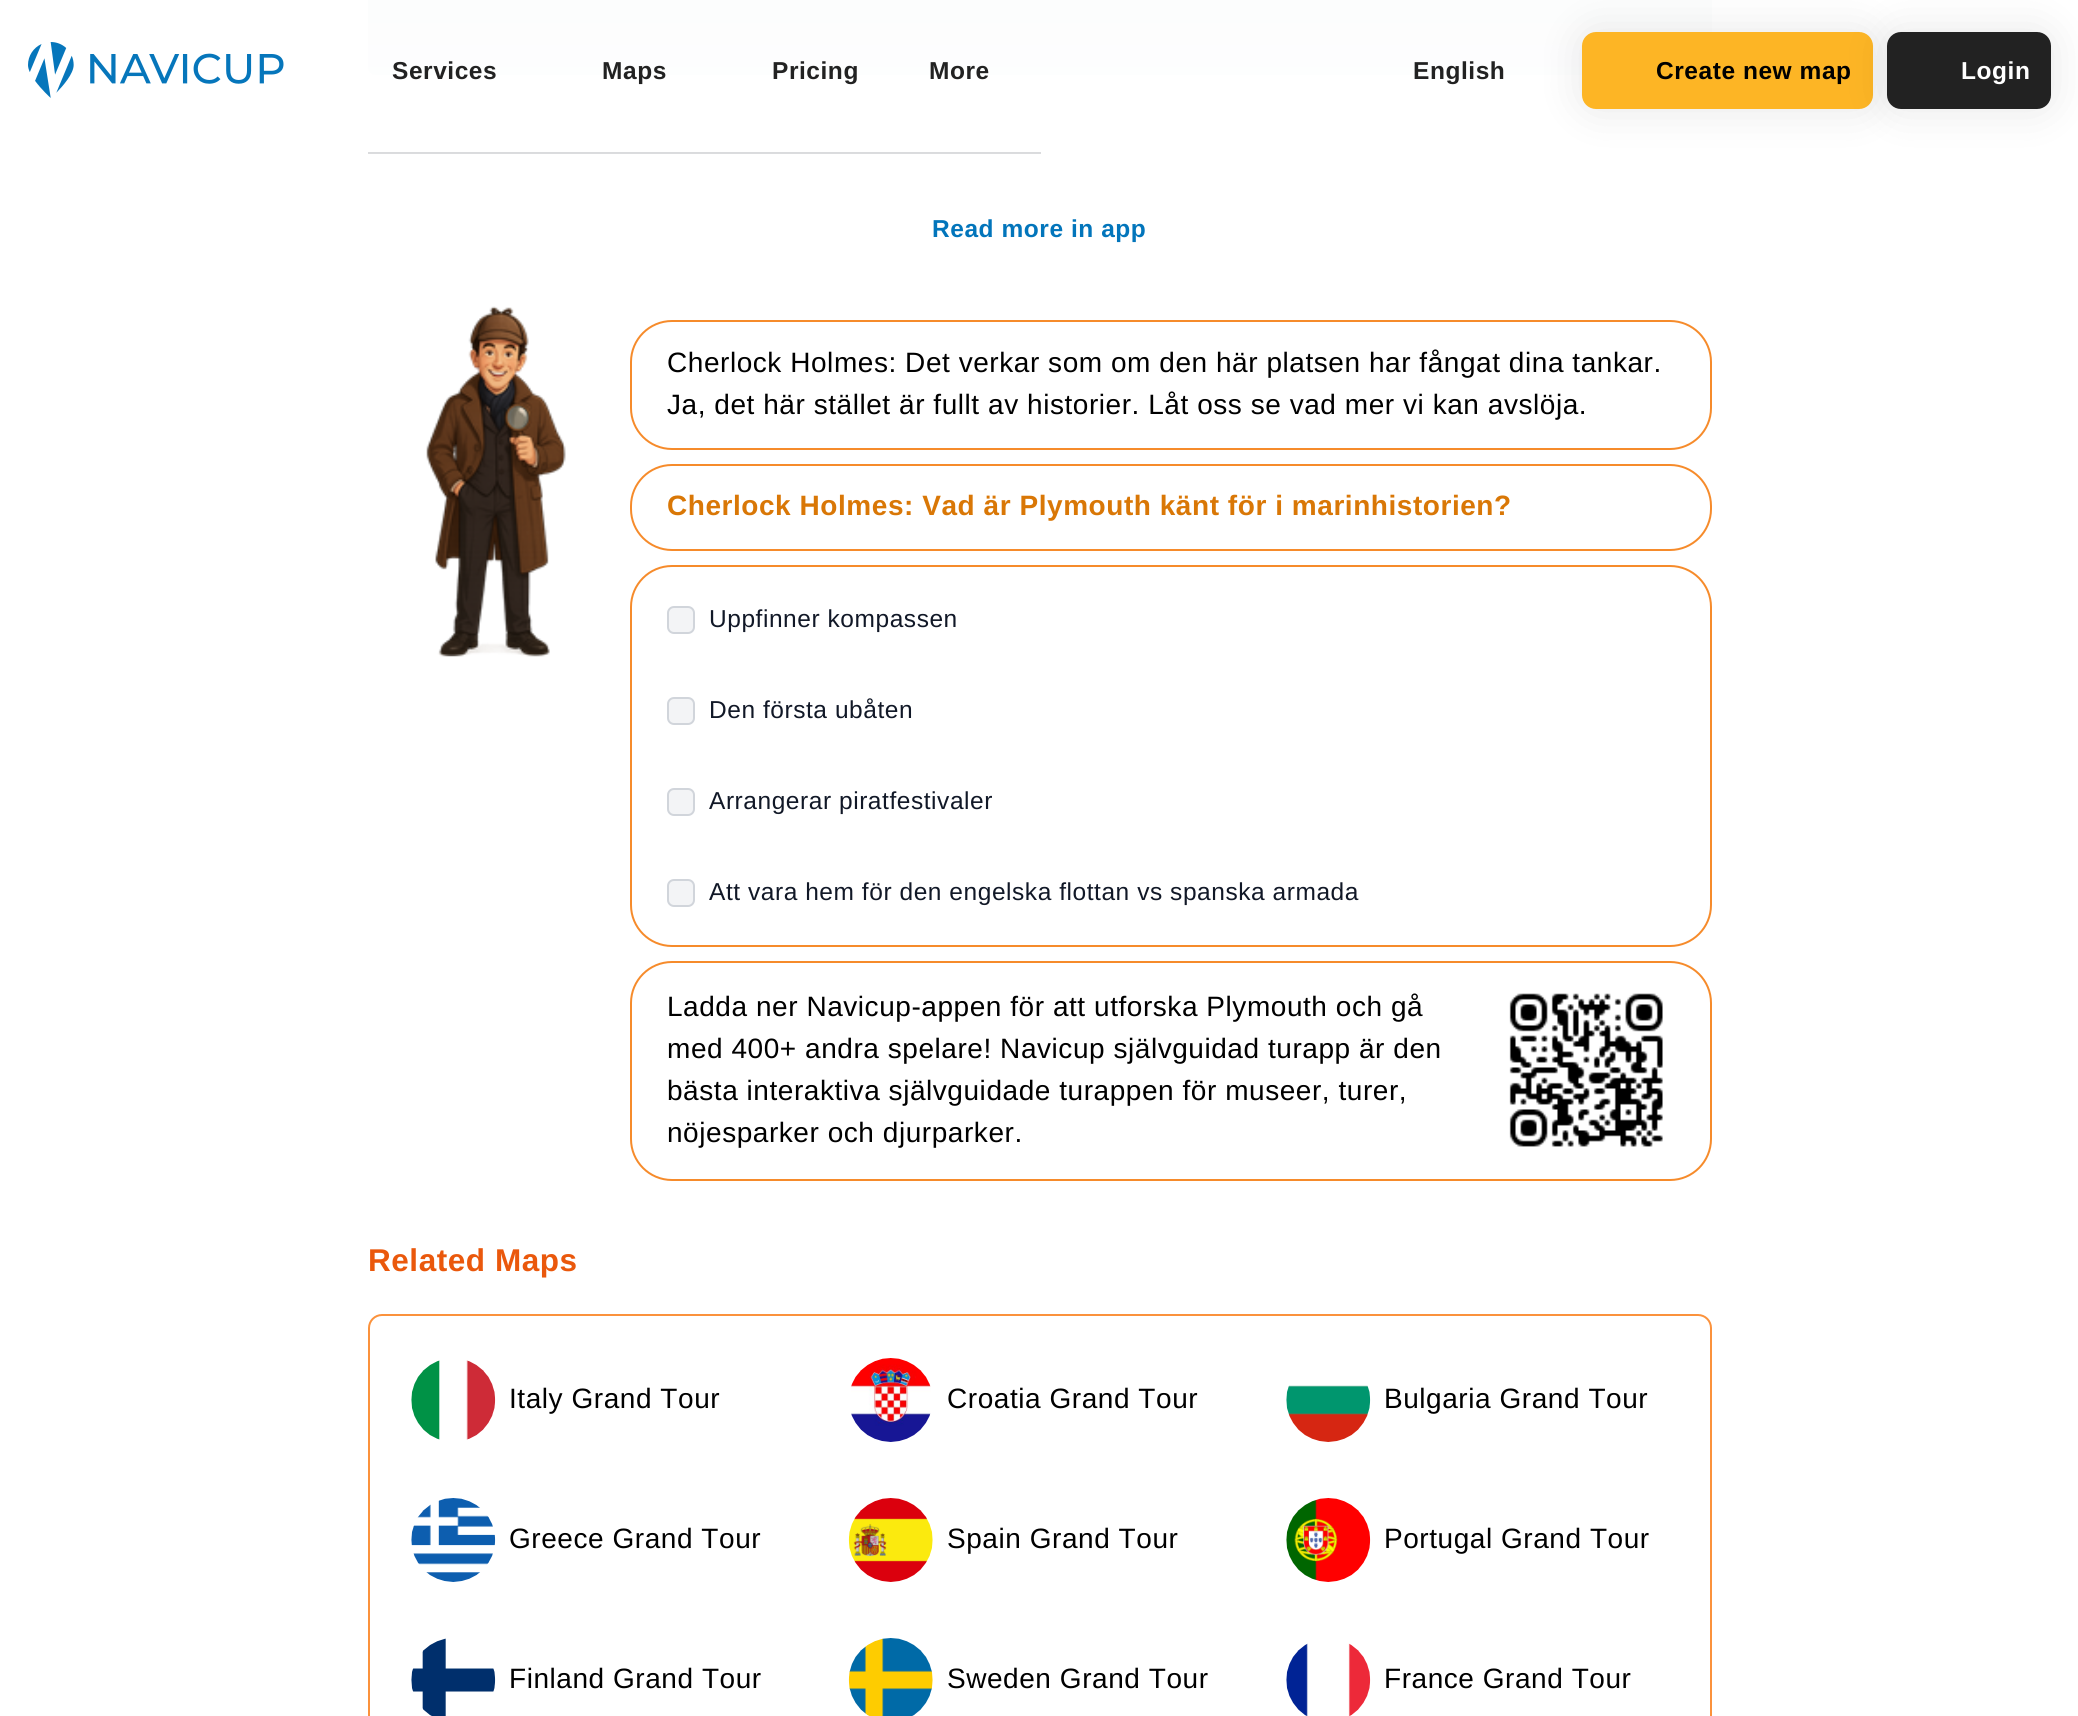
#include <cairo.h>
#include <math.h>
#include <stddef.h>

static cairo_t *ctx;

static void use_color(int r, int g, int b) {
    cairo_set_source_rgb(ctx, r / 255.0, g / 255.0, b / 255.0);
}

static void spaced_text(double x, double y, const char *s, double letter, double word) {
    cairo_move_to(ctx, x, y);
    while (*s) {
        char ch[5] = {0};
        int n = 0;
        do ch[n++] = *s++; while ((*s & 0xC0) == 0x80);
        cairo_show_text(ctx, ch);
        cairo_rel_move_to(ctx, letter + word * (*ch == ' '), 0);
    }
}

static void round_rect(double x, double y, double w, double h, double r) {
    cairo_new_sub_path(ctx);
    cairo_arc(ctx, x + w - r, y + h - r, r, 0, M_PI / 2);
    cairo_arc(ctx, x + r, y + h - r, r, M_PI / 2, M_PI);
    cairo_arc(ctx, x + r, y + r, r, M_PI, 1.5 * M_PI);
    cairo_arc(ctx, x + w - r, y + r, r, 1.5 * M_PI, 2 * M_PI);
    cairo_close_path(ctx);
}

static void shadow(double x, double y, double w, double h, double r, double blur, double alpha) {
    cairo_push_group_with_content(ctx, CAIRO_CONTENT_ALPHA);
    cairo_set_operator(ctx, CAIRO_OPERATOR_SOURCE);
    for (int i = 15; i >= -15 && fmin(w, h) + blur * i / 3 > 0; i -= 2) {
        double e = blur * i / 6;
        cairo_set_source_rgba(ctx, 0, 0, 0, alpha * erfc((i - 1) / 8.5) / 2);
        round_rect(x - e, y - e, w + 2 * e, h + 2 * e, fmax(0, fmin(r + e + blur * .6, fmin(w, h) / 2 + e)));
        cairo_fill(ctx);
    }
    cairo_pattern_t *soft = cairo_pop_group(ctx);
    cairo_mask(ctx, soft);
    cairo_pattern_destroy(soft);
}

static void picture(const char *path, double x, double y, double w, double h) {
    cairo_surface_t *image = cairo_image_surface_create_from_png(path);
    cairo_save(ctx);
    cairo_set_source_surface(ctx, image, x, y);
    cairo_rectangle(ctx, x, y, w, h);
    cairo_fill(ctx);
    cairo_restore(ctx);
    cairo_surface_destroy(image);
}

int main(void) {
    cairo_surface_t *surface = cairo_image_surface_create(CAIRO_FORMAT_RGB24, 2078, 1716);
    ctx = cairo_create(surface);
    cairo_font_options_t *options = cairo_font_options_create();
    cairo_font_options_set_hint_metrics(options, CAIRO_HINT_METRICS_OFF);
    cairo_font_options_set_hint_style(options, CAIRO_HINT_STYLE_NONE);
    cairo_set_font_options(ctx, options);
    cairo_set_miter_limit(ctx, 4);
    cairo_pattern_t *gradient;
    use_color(255, 255, 255);
    cairo_paint(ctx);
    use_color(229, 231, 235);
    round_rect(368, -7, 1344, 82, 7);
    cairo_fill(ctx);
    use_color(17, 24, 39);
    cairo_rectangle(ctx, 368, 152, 673, 2);
    cairo_fill(ctx);
    gradient = cairo_pattern_create_linear(1040, 5.2, 1040, 180);
    cairo_pattern_add_color_stop_rgba(gradient, 0, 1, 1, 1, 0);
    cairo_pattern_add_color_stop_rgba(gradient, 1, 1, 1, 1, 1);
    cairo_set_source(ctx, gradient);
    cairo_pattern_destroy(gradient);
    cairo_rectangle(ctx, 368, 23, 1344, 131);
    cairo_fill(ctx);
    cairo_set_source_rgba(ctx, 1, 1, 1, 0.9);
    cairo_rectangle(ctx, 368, 0, 1344, 75);
    cairo_fill(ctx);
    picture("img1.png", 28, 42, 256, 56);
    cairo_select_font_face(ctx, "Liberation Sans", CAIRO_FONT_SLANT_NORMAL, CAIRO_FONT_WEIGHT_BOLD);
    cairo_set_font_size(ctx, 24.5);
    use_color(34, 34, 34);
    spaced_text(392, 79, "Services", 0.55, 0);
    spaced_text(602, 79, "Maps", 0.55, 0);
    spaced_text(772, 79, "Pricing", 0.55, 0);
    spaced_text(929, 79, "More", 0.55, 0);
    spaced_text(1413, 79, "English", 0.55, 0);
    use_color(0, 0, 0);
    shadow(1582, 32, 291, 77, 14, 21, 0.1);
    use_color(253, 181, 37);
    round_rect(1582, 32, 291, 77, 14);
    cairo_fill(ctx);
    use_color(0, 0, 0);
    spaced_text(1656, 79, "Create new map", 0.55, 0);
    use_color(0, 0, 0);
    shadow(1887, 32, 164, 77, 14, 21, 0.1);
    use_color(34, 34, 34);
    round_rect(1887, 32, 164, 77, 14);
    cairo_fill(ctx);
    use_color(255, 255, 255);
    spaced_text(1961, 79, "Login", 0.55, 0);
    use_color(2, 117, 187);
    spaced_text(932, 237, "Read more in app", 0.55, 0);
    picture("img2.png", 426, 306, 140, 351);
    round_rect(631, 321, 1080, 128, 41);
    use_color(246, 139, 43);
    cairo_stroke(ctx);
    cairo_select_font_face(ctx, "Liberation Sans", CAIRO_FONT_SLANT_NORMAL, CAIRO_FONT_WEIGHT_NORMAL);
    cairo_set_font_size(ctx, 28);
    use_color(0, 0, 0);
    spaced_text(667, 372, "Cherlock Holmes: Det verkar som om den här platsen har fångat dina tankar.", 0.55, 0);
    spaced_text(667, 414, "Ja, det här stället är fullt av historier. Låt oss se vad mer vi kan avslöja.", 0.55, 0);
    round_rect(631, 465, 1080, 85, 41);
    use_color(246, 139, 43);
    cairo_stroke(ctx);
    cairo_select_font_face(ctx, "Liberation Sans", CAIRO_FONT_SLANT_NORMAL, CAIRO_FONT_WEIGHT_BOLD);
    use_color(217, 119, 6);
    spaced_text(667, 515, "Cherlock Holmes: Vad är Plymouth känt för i marinhistorien?", 0.55, 0);
    round_rect(631, 566, 1080, 380, 41);
    use_color(246, 139, 43);
    cairo_stroke(ctx);
    use_color(243, 244, 246);
    round_rect(668, 607, 26, 26, 6);
    cairo_fill_preserve(ctx);
    use_color(209, 213, 219);
    cairo_stroke(ctx);
    cairo_select_font_face(ctx, "Liberation Sans", CAIRO_FONT_SLANT_NORMAL, CAIRO_FONT_WEIGHT_NORMAL);
    cairo_set_font_size(ctx, 24.5);
    use_color(17, 24, 39);
    spaced_text(709, 627, "Uppfinner kompassen", 0.55, 0);
    use_color(243, 244, 246);
    round_rect(668, 698, 26, 26, 6);
    cairo_fill_preserve(ctx);
    use_color(209, 213, 219);
    cairo_stroke(ctx);
    use_color(17, 24, 39);
    spaced_text(709, 718, "Den första ubåten", 0.55, 0);
    use_color(243, 244, 246);
    round_rect(668, 789, 26, 26, 6);
    cairo_fill_preserve(ctx);
    use_color(209, 213, 219);
    cairo_stroke(ctx);
    use_color(17, 24, 39);
    spaced_text(709, 809, "Arrangerar piratfestivaler", 0.55, 0);
    use_color(243, 244, 246);
    round_rect(668, 880, 26, 26, 6);
    cairo_fill_preserve(ctx);
    use_color(209, 213, 219);
    cairo_stroke(ctx);
    use_color(17, 24, 39);
    spaced_text(709, 900, "Att vara hem för den engelska flottan vs spanska armada", 0.55, 0);
    round_rect(631, 962, 1080, 218, 41);
    use_color(246, 139, 43);
    cairo_stroke(ctx);
    cairo_set_font_size(ctx, 28);
    use_color(0, 0, 0);
    spaced_text(667, 1016, "Ladda ner Navicup-appen för att utforska Plymouth och gå", 0.55, 0);
    spaced_text(667, 1058, "med 400+ andra spelare! Navicup självguidad turapp är den", 0.55, 0);
    spaced_text(667, 1100, "bästa interaktiva självguidade turappen för museer, turer,", 0.55, 0);
    spaced_text(667, 1142, "nöjesparker och djurparker.", 0.55, 0);
    picture("img3.png", 1509, 993, 154, 154);
    cairo_select_font_face(ctx, "Liberation Sans", CAIRO_FONT_SLANT_NORMAL, CAIRO_FONT_WEIGHT_BOLD);
    cairo_set_font_size(ctx, 31.5);
    use_color(234, 88, 12);
    spaced_text(368, 1271, "Related Maps", 0.55, 0);
    round_rect(369, 1315, 1342, 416, 13);
    use_color(251, 146, 60);
    cairo_stroke(ctx);
    picture("img4.png", 411, 1360, 85, 80);
    cairo_select_font_face(ctx, "Liberation Sans", CAIRO_FONT_SLANT_NORMAL, CAIRO_FONT_WEIGHT_NORMAL);
    cairo_set_font_size(ctx, 28);
    use_color(0, 0, 0);
    spaced_text(509, 1408, "Italy Grand Tour", 0.55, 0);
    picture("img5.png", 851, 1358, 80, 84);
    spaced_text(947, 1408, "Croatia Grand Tour", 0.55, 0);
    picture("img6.png", 1286, 1385, 85, 57);
    spaced_text(1384, 1408, "Bulgaria Grand Tour", 0.55, 0);
    picture("img7.png", 411, 1498, 85, 84);
    spaced_text(509, 1548, "Greece Grand Tour", 0.55, 0);
    picture("img8.png", 848, 1498, 85, 84);
    spaced_text(947, 1548, "Spain Grand Tour", 0.55, 0);
    picture("img9.png", 1286, 1498, 85, 84);
    spaced_text(1384, 1548, "Portugal Grand Tour", 0.55, 0);
    picture("img10.png", 411, 1638, 85, 78);
    spaced_text(509, 1688, "Finland Grand Tour", 0.55, 0);
    picture("img11.png", 848, 1638, 85, 78);
    spaced_text(947, 1688, "Sweden Grand Tour", 0.55, 0);
    picture("img12.png", 1286, 1643, 85, 73);
    spaced_text(1384, 1688, "France Grand Tour", 0.55, 0);
    cairo_surface_write_to_png(surface, "result.png");
    cairo_font_options_destroy(options);
    cairo_destroy(ctx);
    cairo_surface_destroy(surface);
    return 0;
}
